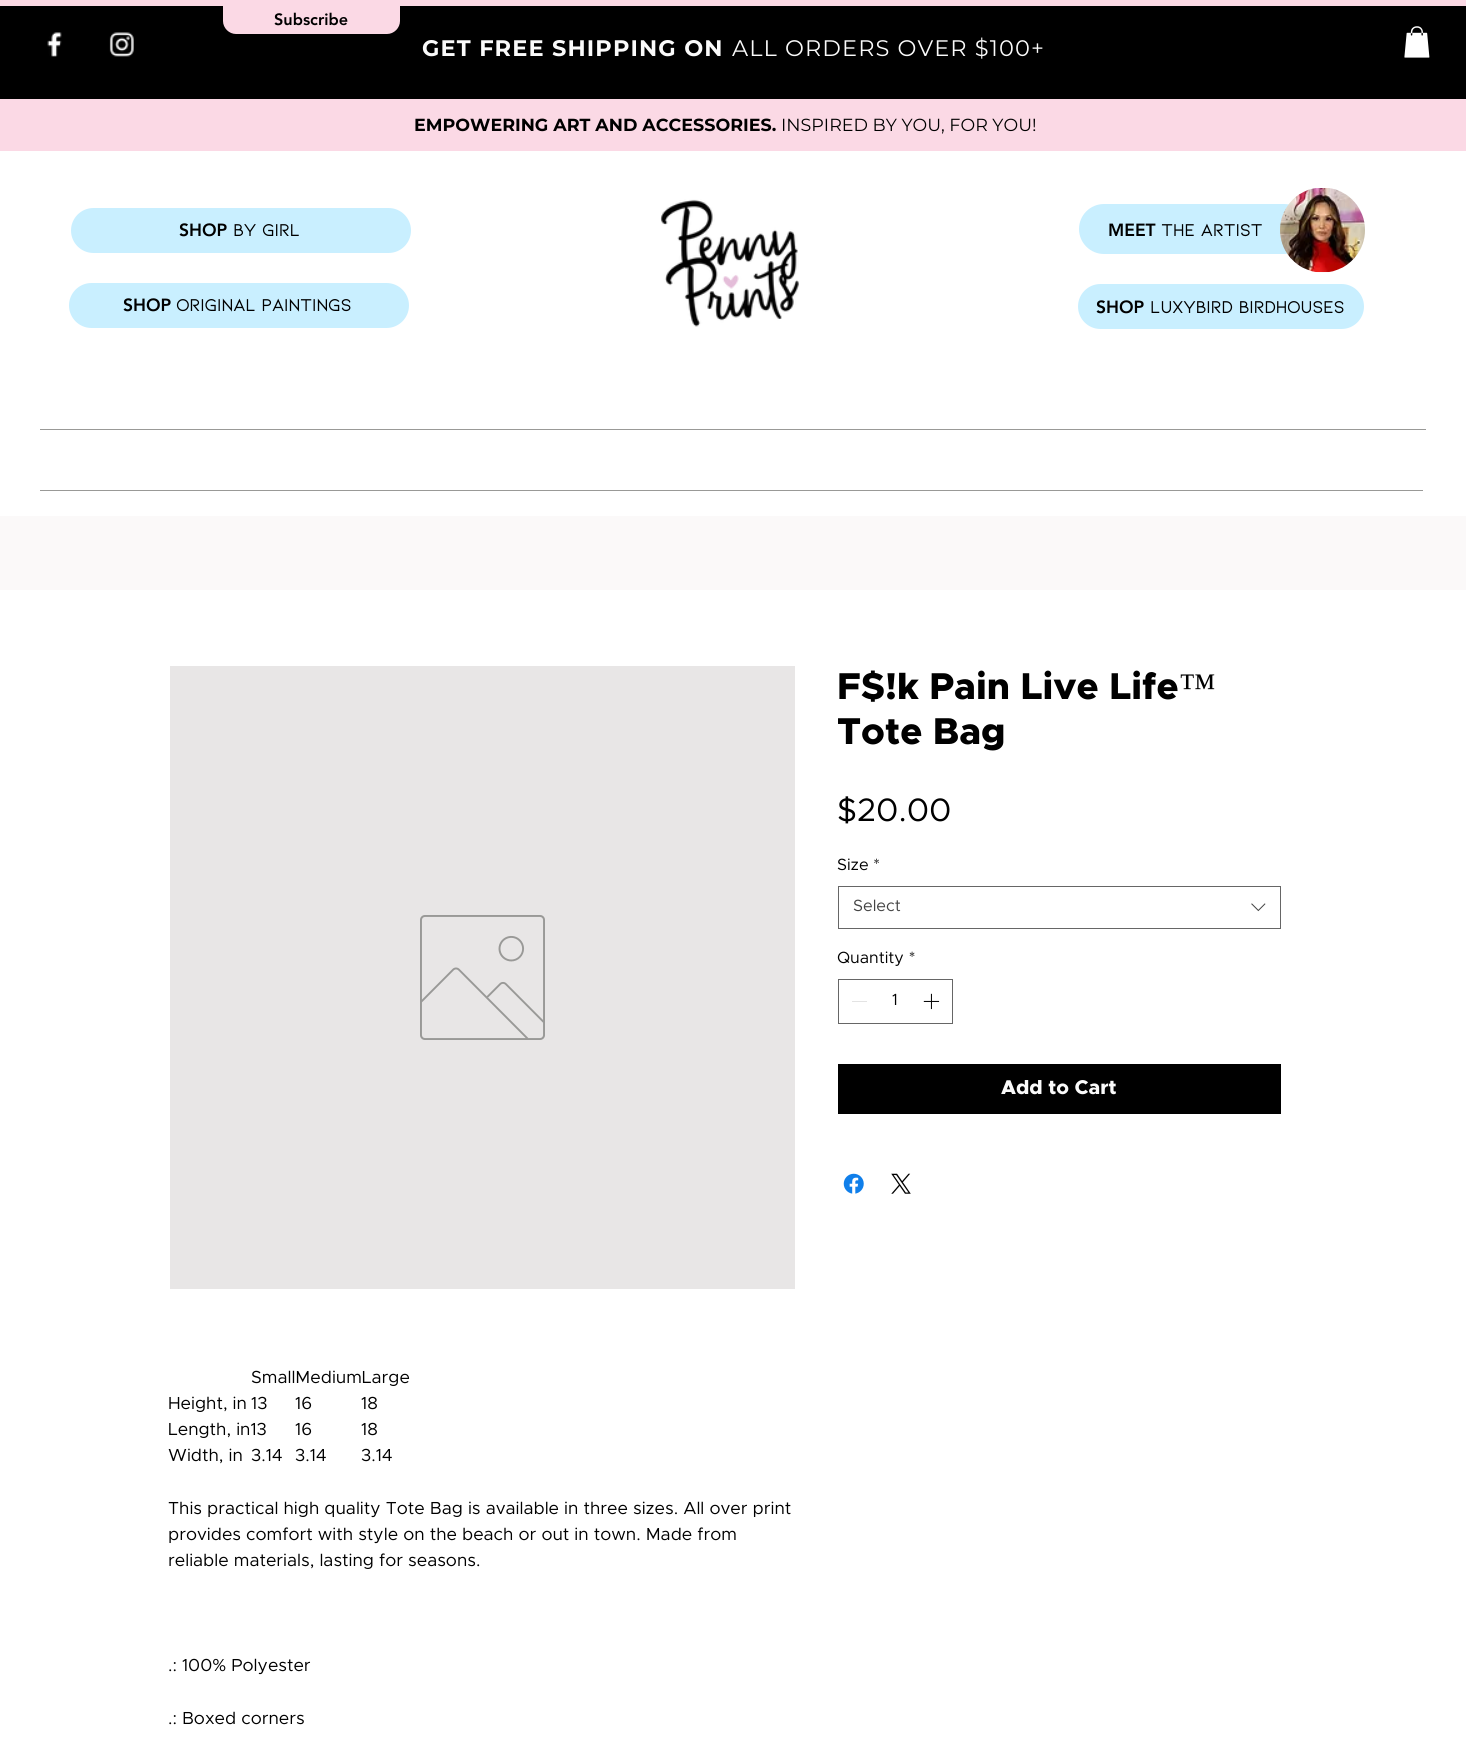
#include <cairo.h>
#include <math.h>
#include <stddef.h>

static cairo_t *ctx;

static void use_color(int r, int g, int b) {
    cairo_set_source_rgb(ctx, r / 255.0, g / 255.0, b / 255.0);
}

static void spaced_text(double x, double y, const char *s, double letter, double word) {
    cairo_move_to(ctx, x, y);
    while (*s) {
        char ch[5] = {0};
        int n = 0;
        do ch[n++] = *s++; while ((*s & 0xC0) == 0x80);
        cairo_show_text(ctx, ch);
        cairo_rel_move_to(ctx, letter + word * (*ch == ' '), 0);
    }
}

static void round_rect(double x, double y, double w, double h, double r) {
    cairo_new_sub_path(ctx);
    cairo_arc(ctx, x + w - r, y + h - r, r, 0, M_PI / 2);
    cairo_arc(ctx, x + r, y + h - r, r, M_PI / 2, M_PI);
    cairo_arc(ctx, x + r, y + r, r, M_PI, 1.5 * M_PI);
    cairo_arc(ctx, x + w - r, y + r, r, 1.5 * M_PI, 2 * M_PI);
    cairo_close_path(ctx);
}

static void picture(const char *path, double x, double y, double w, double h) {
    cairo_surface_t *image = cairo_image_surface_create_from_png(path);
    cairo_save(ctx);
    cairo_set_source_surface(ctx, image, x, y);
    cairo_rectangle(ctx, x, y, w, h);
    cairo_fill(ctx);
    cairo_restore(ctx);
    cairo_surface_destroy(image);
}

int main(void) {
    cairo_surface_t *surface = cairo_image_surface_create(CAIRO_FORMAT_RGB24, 1466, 1752);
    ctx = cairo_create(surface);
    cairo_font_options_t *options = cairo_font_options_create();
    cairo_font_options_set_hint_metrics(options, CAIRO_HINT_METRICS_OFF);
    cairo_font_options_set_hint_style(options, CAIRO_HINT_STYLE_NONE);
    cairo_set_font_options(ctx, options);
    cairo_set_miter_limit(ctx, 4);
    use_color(255, 255, 255);
    cairo_paint(ctx);
    use_color(251, 217, 229);
    cairo_rectangle(ctx, 0, 0, 1466, 6);
    cairo_fill(ctx);
    use_color(0, 0, 0);
    cairo_rectangle(ctx, 0, 6, 1466, 93);
    cairo_fill(ctx);
    picture("img1.png", 47, 32, 15, 25);
    picture("img2.png", 109, 32, 25, 25);
    use_color(251, 217, 229);
    cairo_new_path(ctx);
    cairo_move_to(ctx, 223, 6);
    cairo_line_to(ctx, 400, 6);
    cairo_line_to(ctx, 400, 21);
    cairo_curve_to(ctx, 400, 28, 394, 34, 387, 34);
    cairo_line_to(ctx, 236, 34);
    cairo_curve_to(ctx, 229, 34, 223, 28, 223, 21);
    cairo_close_path(ctx);
    cairo_fill(ctx);
    cairo_select_font_face(ctx, "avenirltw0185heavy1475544 Black", CAIRO_FONT_SLANT_NORMAL, CAIRO_FONT_WEIGHT_NORMAL);
    cairo_set_font_size(ctx, 16.25);
    use_color(0, 0, 0);
    cairo_move_to(ctx, 274, 25);
    cairo_show_text(ctx, "Subscribe");
    cairo_select_font_face(ctx, "Montserrat", CAIRO_FONT_SLANT_NORMAL, CAIRO_FONT_WEIGHT_BOLD);
    cairo_set_font_size(ctx, 22.5);
    use_color(250, 250, 250);
    spaced_text(422, 56, "GET FREE SHIPPING ON", 1.1, 0);
    cairo_select_font_face(ctx, "Montserrat", CAIRO_FONT_SLANT_NORMAL, CAIRO_FONT_WEIGHT_NORMAL);
    spaced_text(732, 56, "ALL ORDERS OVER $100+", 1.1, 0);
    use_color(251, 217, 229);
    cairo_rectangle(ctx, 0, 99, 1466, 52);
    cairo_fill(ctx);
    cairo_select_font_face(ctx, "Montserrat", CAIRO_FONT_SLANT_NORMAL, CAIRO_FONT_WEIGHT_BOLD);
    cairo_set_font_size(ctx, 17.5);
    use_color(0, 0, 0);
    cairo_move_to(ctx, 414, 131);
    cairo_show_text(ctx, "EMPOWERING ART AND ACCESSORIES.");
    cairo_select_font_face(ctx, "Montserrat", CAIRO_FONT_SLANT_NORMAL, CAIRO_FONT_WEIGHT_NORMAL);
    cairo_move_to(ctx, 781, 131);
    cairo_show_text(ctx, "INSPIRED BY YOU, FOR YOU!");
    use_color(201, 239, 255);
    round_rect(71, 208, 340, 45, 22.5);
    cairo_fill(ctx);
    cairo_select_font_face(ctx, "avenirltw0185heavy1475544 Black", CAIRO_FONT_SLANT_NORMAL, CAIRO_FONT_WEIGHT_NORMAL);
    use_color(0, 0, 0);
    cairo_move_to(ctx, 179, 236);
    cairo_show_text(ctx, "SHOP");
    cairo_select_font_face(ctx, "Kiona", CAIRO_FONT_SLANT_NORMAL, CAIRO_FONT_WEIGHT_BOLD);
    cairo_move_to(ctx, 233, 236);
    cairo_show_text(ctx, "BY GIRL");
    use_color(201, 239, 255);
    round_rect(69, 283, 340, 45, 22.5);
    cairo_fill(ctx);
    cairo_select_font_face(ctx, "avenirltw0185heavy1475544 Black", CAIRO_FONT_SLANT_NORMAL, CAIRO_FONT_WEIGHT_NORMAL);
    use_color(0, 0, 0);
    cairo_move_to(ctx, 123, 311);
    cairo_show_text(ctx, "SHOP");
    cairo_select_font_face(ctx, "Kiona", CAIRO_FONT_SLANT_NORMAL, CAIRO_FONT_WEIGHT_BOLD);
    cairo_move_to(ctx, 176, 311);
    cairo_show_text(ctx, "ORIGINAL PAINTINGS");
    picture("img3.png", 660, 199, 139, 128);
    use_color(201, 239, 255);
    round_rect(1079, 204, 230, 50, 25);
    cairo_fill(ctx);
    cairo_select_font_face(ctx, "avenirltw0185heavy1475544 Black", CAIRO_FONT_SLANT_NORMAL, CAIRO_FONT_WEIGHT_NORMAL);
    use_color(0, 0, 0);
    cairo_move_to(ctx, 1108, 236);
    cairo_show_text(ctx, "MEET");
    cairo_select_font_face(ctx, "Kiona", CAIRO_FONT_SLANT_NORMAL, CAIRO_FONT_WEIGHT_BOLD);
    cairo_move_to(ctx, 1161, 236);
    cairo_show_text(ctx, "THE ARTIST");
    picture("img4.png", 1280, 188, 85, 85);
    use_color(201, 239, 255);
    round_rect(1078, 284, 286, 45, 22.5);
    cairo_fill(ctx);
    cairo_select_font_face(ctx, "avenirltw0185heavy1475544 Black", CAIRO_FONT_SLANT_NORMAL, CAIRO_FONT_WEIGHT_NORMAL);
    use_color(0, 0, 0);
    cairo_move_to(ctx, 1096, 313);
    cairo_show_text(ctx, "SHOP");
    cairo_select_font_face(ctx, "Kiona", CAIRO_FONT_SLANT_NORMAL, CAIRO_FONT_WEIGHT_BOLD);
    cairo_move_to(ctx, 1150, 313);
    cairo_show_text(ctx, "LUXYBIRD BIRDHOUSES");
    use_color(153, 153, 151);
    cairo_rectangle(ctx, 40, 429, 1386, 1);
    cairo_fill(ctx);
    cairo_rectangle(ctx, 40, 490, 1383, 1);
    cairo_fill(ctx);
    picture("img5.png", 1404, 26, 26, 32);
    use_color(251, 249, 249);
    cairo_rectangle(ctx, 0, 516, 1466, 74);
    cairo_fill(ctx);
    cairo_select_font_face(ctx, "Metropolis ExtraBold", CAIRO_FONT_SLANT_NORMAL, CAIRO_FONT_WEIGHT_NORMAL);
    cairo_set_font_size(ctx, 37.5);
    use_color(0, 0, 0);
    cairo_move_to(ctx, 837, 699);
    cairo_show_text(ctx, "F$!k Pain Live Life");
    cairo_select_font_face(ctx, "Liberation Serif", CAIRO_FONT_SLANT_NORMAL, CAIRO_FONT_WEIGHT_NORMAL);
    cairo_move_to(ctx, 1179, 699);
    cairo_show_text(ctx, "™");
    cairo_select_font_face(ctx, "Metropolis ExtraBold", CAIRO_FONT_SLANT_NORMAL, CAIRO_FONT_WEIGHT_NORMAL);
    cairo_move_to(ctx, 837, 744);
    cairo_show_text(ctx, "Tote Bag");
    cairo_select_font_face(ctx, "Metropolis", CAIRO_FONT_SLANT_NORMAL, CAIRO_FONT_WEIGHT_NORMAL);
    cairo_set_font_size(ctx, 32.5);
    cairo_move_to(ctx, 837, 821);
    cairo_show_text(ctx, "$20.00");
    cairo_set_font_size(ctx, 16.25);
    cairo_move_to(ctx, 837, 870);
    cairo_show_text(ctx, "Size *");
    cairo_rectangle(ctx, 838.5, 886.5, 442, 42);
    use_color(102, 102, 102);
    cairo_set_line_width(ctx, 1);
    cairo_stroke(ctx);
    use_color(68, 68, 68);
    cairo_move_to(ctx, 853, 911);
    cairo_show_text(ctx, "Select");
    picture("img6.png", 1251, 903, 15, 9);
    use_color(0, 0, 0);
    cairo_move_to(ctx, 837, 963);
    cairo_show_text(ctx, "Quantity *");
    cairo_rectangle(ctx, 838.5, 979.5, 114, 44);
    use_color(102, 102, 102);
    cairo_stroke(ctx);
    use_color(227, 227, 227);
    cairo_rectangle(ctx, 852, 1001, 15, 1);
    cairo_fill(ctx);
    use_color(0, 0, 0);
    cairo_move_to(ctx, 892, 1005);
    cairo_show_text(ctx, "1");
    picture("img7.png", 923, 993, 17, 17);
    cairo_rectangle(ctx, 838, 1064, 443, 50);
    cairo_fill(ctx);
    cairo_select_font_face(ctx, "Metropolis ExtraBold", CAIRO_FONT_SLANT_NORMAL, CAIRO_FONT_WEIGHT_NORMAL);
    cairo_set_font_size(ctx, 20);
    use_color(250, 250, 250);
    cairo_move_to(ctx, 1001, 1094);
    cairo_show_text(ctx, "Add to Cart");
    picture("img8.png", 843, 1173, 21, 21);
    picture("img9.png", 891, 1173, 20, 21);
    use_color(232, 230, 230);
    cairo_rectangle(ctx, 170, 666, 625, 623);
    cairo_fill(ctx);
    picture("img10.png", 420, 915, 125, 125);
    cairo_select_font_face(ctx, "Metropolis", CAIRO_FONT_SLANT_NORMAL, CAIRO_FONT_WEIGHT_NORMAL);
    cairo_set_font_size(ctx, 17.5);
    use_color(0, 0, 0);
    cairo_move_to(ctx, 251, 1383);
    cairo_show_text(ctx, "SmallMediumLarge");
    cairo_move_to(ctx, 168, 1409);
    cairo_show_text(ctx, "Height, in");
    cairo_move_to(ctx, 251, 1409);
    cairo_show_text(ctx, "13");
    cairo_move_to(ctx, 295, 1409);
    cairo_show_text(ctx, "16");
    cairo_move_to(ctx, 361, 1409);
    cairo_show_text(ctx, "18");
    cairo_move_to(ctx, 168, 1435);
    cairo_show_text(ctx, "Length, in13");
    cairo_move_to(ctx, 295, 1435);
    cairo_show_text(ctx, "16");
    cairo_move_to(ctx, 361, 1435);
    cairo_show_text(ctx, "18");
    cairo_move_to(ctx, 168, 1461);
    cairo_show_text(ctx, "Width, in");
    cairo_move_to(ctx, 251, 1461);
    cairo_show_text(ctx, "3.14");
    cairo_move_to(ctx, 295, 1461);
    cairo_show_text(ctx, "3.14");
    cairo_move_to(ctx, 361, 1461);
    cairo_show_text(ctx, "3.14");
    cairo_move_to(ctx, 168, 1514);
    cairo_show_text(ctx, "This practical high quality Tote Bag is available in three sizes. All over print");
    cairo_move_to(ctx, 168, 1540);
    cairo_show_text(ctx, "provides comfort with style on the beach or out in town. Made from");
    cairo_move_to(ctx, 168, 1566);
    cairo_show_text(ctx, "reliable materials, lasting for seasons.");
    cairo_move_to(ctx, 168, 1671);
    cairo_show_text(ctx, ".: 100% Polyester");
    cairo_move_to(ctx, 168, 1724);
    cairo_show_text(ctx, ".: Boxed corners");
    cairo_surface_write_to_png(surface, "result.png");
    cairo_font_options_destroy(options);
    cairo_destroy(ctx);
    cairo_surface_destroy(surface);
    return 0;
}
